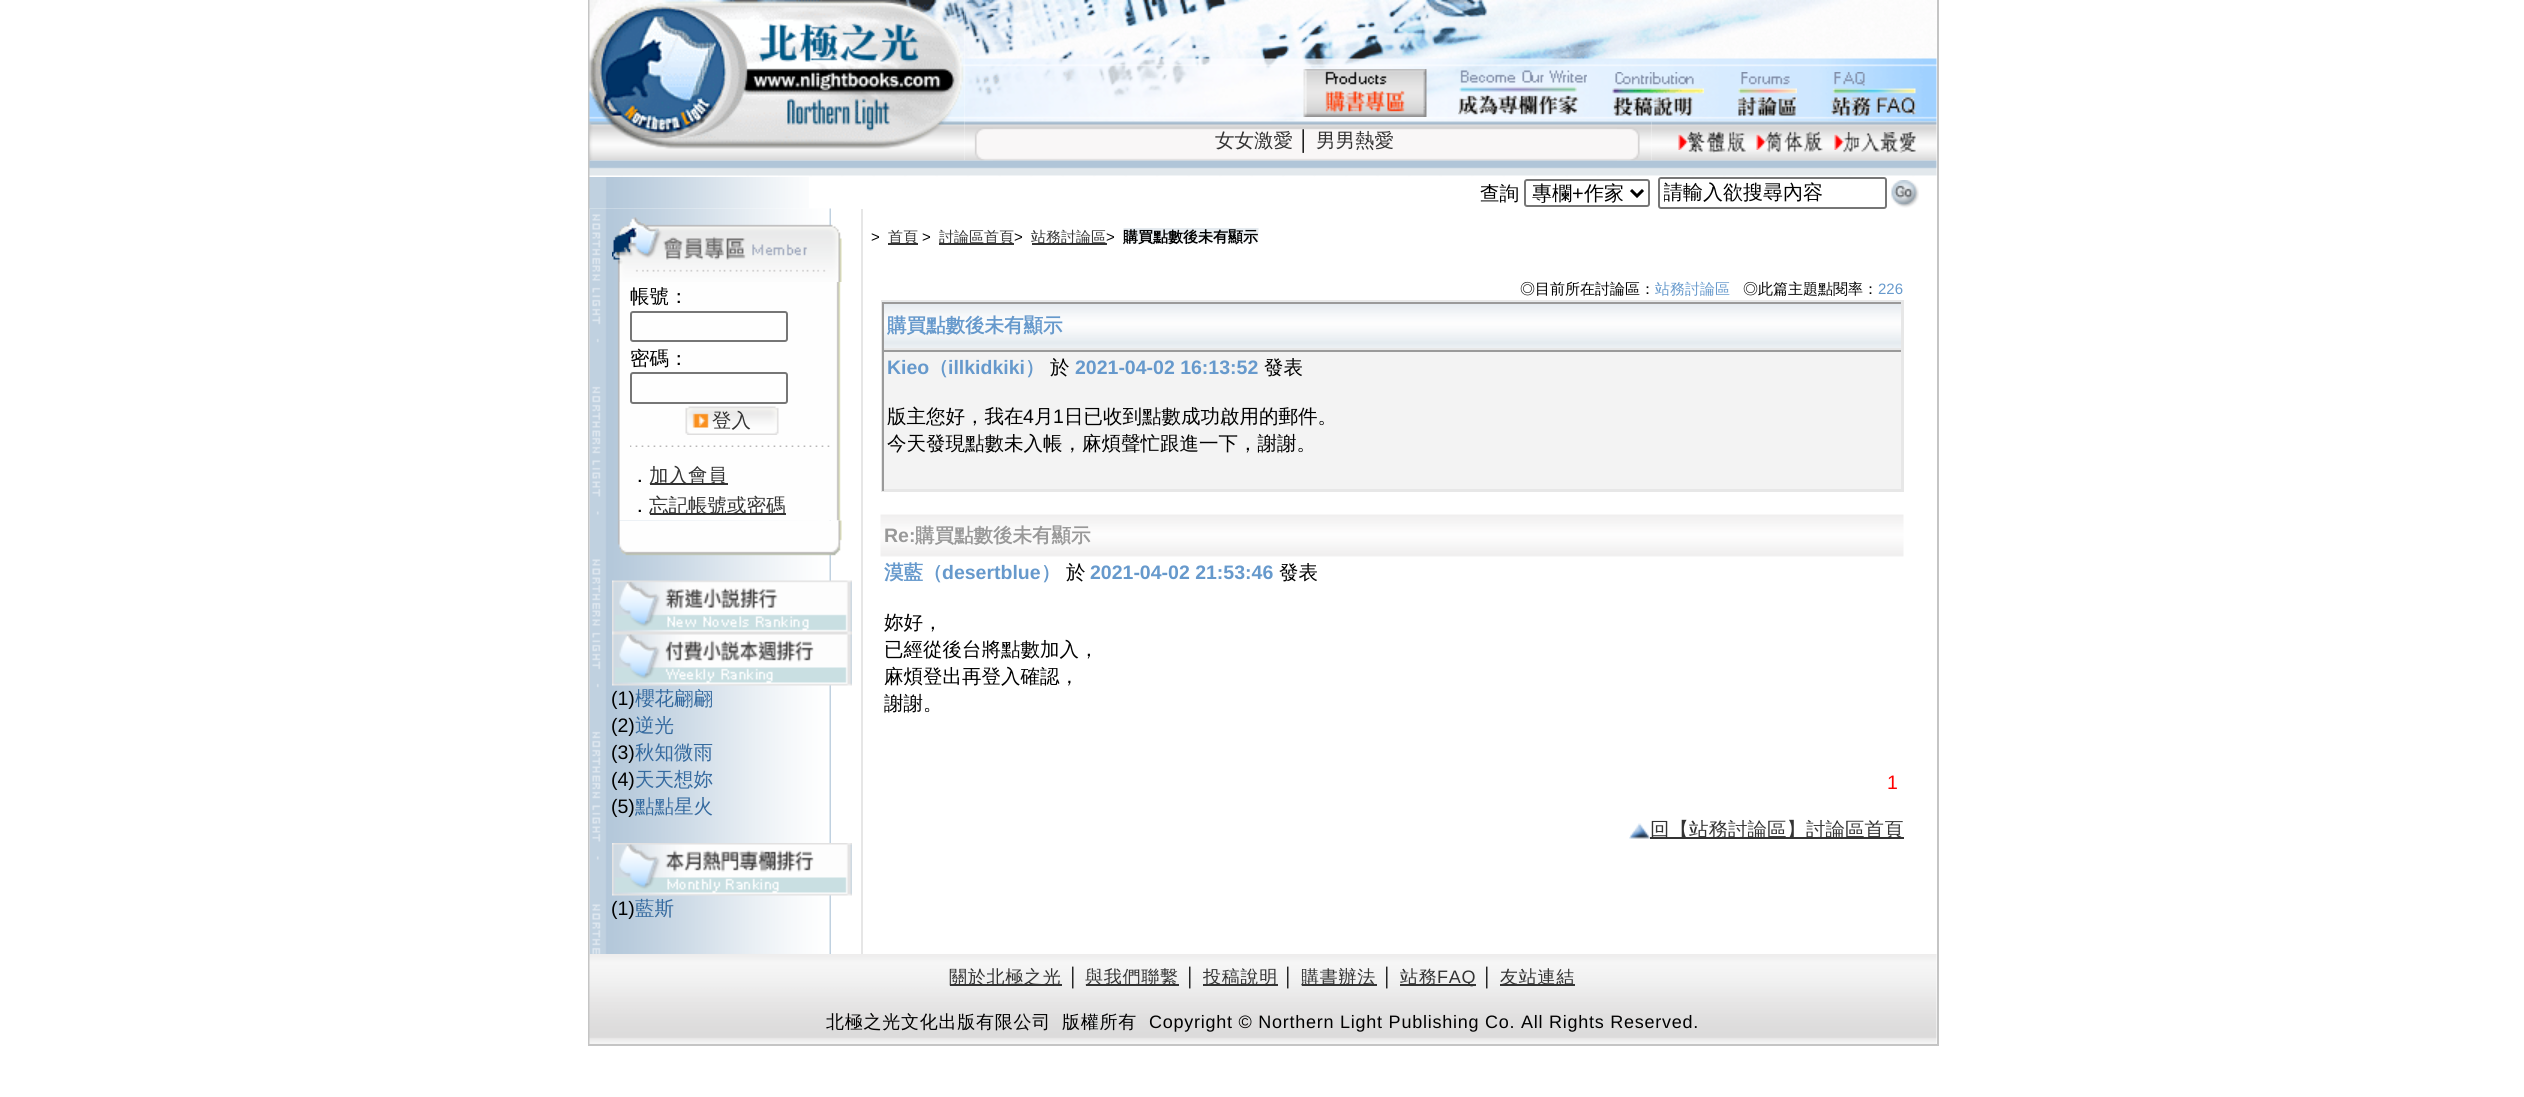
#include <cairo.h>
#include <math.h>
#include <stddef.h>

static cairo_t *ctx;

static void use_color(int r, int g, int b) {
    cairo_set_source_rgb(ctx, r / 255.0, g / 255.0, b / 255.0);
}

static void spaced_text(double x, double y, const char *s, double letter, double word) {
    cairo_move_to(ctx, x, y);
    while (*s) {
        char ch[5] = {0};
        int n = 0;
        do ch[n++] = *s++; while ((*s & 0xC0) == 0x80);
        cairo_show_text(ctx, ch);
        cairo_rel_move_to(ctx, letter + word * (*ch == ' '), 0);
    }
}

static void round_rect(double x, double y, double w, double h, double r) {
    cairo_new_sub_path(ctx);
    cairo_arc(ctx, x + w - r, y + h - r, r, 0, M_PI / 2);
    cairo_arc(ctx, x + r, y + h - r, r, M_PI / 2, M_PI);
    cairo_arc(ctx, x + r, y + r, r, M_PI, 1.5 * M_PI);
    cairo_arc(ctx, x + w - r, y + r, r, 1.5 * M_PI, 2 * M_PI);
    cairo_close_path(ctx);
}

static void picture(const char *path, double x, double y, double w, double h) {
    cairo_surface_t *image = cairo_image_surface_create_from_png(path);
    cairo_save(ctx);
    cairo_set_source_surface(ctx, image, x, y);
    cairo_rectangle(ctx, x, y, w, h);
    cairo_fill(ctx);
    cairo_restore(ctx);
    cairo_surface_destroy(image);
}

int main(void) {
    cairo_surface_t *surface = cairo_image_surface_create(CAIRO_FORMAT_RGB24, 2524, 1097);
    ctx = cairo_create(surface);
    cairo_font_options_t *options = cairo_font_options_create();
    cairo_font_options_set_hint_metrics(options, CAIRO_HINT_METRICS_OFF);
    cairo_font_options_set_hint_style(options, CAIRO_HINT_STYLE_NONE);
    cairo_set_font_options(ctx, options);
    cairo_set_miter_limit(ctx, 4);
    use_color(255, 255, 255);
    cairo_paint(ctx);
    use_color(197, 197, 197);
    cairo_rectangle(ctx, 1937, 0, 2, 1046);
    cairo_fill(ctx);
    cairo_rectangle(ctx, 588, 1044, 1350, 2);
    cairo_fill(ctx);
    cairo_rectangle(ctx, 588, 0, 2, 1046);
    cairo_fill(ctx);
    picture("img1.png", 589, 0, 376, 161);
    picture("img2.png", 964, 0, 973, 122);
    picture("img3.png", 1303, 69, 124, 48);
    picture("img4.png", 1458, 70, 129, 46);
    picture("img5.png", 1612, 72, 92, 44);
    picture("img6.png", 1737, 72, 60, 44);
    picture("img7.png", 1831, 72, 85, 44);
    picture("img8.png", 964, 121, 29, 40);
    picture("img9.png", 993, 121, 624, 40);
    cairo_select_font_face(ctx, "WenQuanYi Zen Hei Medium", CAIRO_FONT_SLANT_NORMAL, CAIRO_FONT_WEIGHT_NORMAL);
    cairo_set_font_size(ctx, 19.5);
    use_color(51, 51, 51);
    cairo_move_to(ctx, 1215, 147);
    cairo_show_text(ctx, "女女激愛");
    cairo_select_font_face(ctx, "Liberation Sans", CAIRO_FONT_SLANT_NORMAL, CAIRO_FONT_WEIGHT_NORMAL);
    use_color(0, 0, 0);
    cairo_move_to(ctx, 1298, 147);
    cairo_show_text(ctx, "│");
    cairo_select_font_face(ctx, "WenQuanYi Zen Hei Medium", CAIRO_FONT_SLANT_NORMAL, CAIRO_FONT_WEIGHT_NORMAL);
    use_color(51, 51, 51);
    cairo_move_to(ctx, 1316, 147);
    cairo_show_text(ctx, "男男熱愛");
    picture("img10.png", 1617, 121, 35, 40);
    picture("img11.png", 1651, 121, 286, 40);
    picture("img12.png", 1678, 133, 10, 17);
    picture("img13.png", 1687, 130, 59, 23);
    picture("img12.png", 1756, 133, 10, 17);
    picture("img14.png", 1765, 130, 58, 23);
    picture("img15.png", 1834, 133, 10, 17);
    picture("img16.png", 1843, 132, 73, 21);
    picture("img17.png", 589, 160, 1348, 17);
    picture("img18.png", 589, 177, 220, 32);
    use_color(0, 0, 0);
    cairo_move_to(ctx, 1480, 200);
    cairo_show_text(ctx, "查詢");
    round_rect(1525, 180, 124, 26, 2);
    use_color(118, 118, 118);
    cairo_stroke(ctx);
    cairo_new_path(ctx);
    cairo_move_to(ctx, 1631, 190);
    cairo_line_to(ctx, 1637, 196);
    cairo_line_to(ctx, 1643, 190);
    use_color(0, 0, 0);
    cairo_set_line_width(ctx, 3);
    cairo_stroke(ctx);
    cairo_set_font_size(ctx, 20);
    cairo_move_to(ctx, 1532, 200);
    cairo_show_text(ctx, "專欄");
    cairo_select_font_face(ctx, "Liberation Sans", CAIRO_FONT_SLANT_NORMAL, CAIRO_FONT_WEIGHT_NORMAL);
    cairo_move_to(ctx, 1572, 200);
    cairo_show_text(ctx, "+");
    cairo_select_font_face(ctx, "WenQuanYi Zen Hei Medium", CAIRO_FONT_SLANT_NORMAL, CAIRO_FONT_WEIGHT_NORMAL);
    cairo_move_to(ctx, 1584, 200);
    cairo_show_text(ctx, "作家");
    round_rect(1659, 178, 227, 30, 2);
    use_color(118, 118, 118);
    cairo_set_line_width(ctx, 2);
    cairo_stroke(ctx);
    cairo_save(ctx);
    cairo_rectangle(ctx, 1664, 180, 217, 26);
    cairo_clip(ctx);
    use_color(0, 0, 0);
    cairo_move_to(ctx, 1663, 199);
    cairo_show_text(ctx, "請輸入欲搜尋內容");
    cairo_restore(ctx);
    picture("img19.png", 1891, 180, 28, 28);
    picture("img20.png", 589, 208, 242, 746);
    use_color(230, 230, 230);
    cairo_rectangle(ctx, 861, 209, 2, 745);
    cairo_fill(ctx);
    picture("img21.png", 612, 217, 230, 65);
    picture("img22.png", 617, 282, 224, 239);
    cairo_set_font_size(ctx, 19.5);
    use_color(0, 0, 0);
    cairo_move_to(ctx, 630, 303);
    cairo_show_text(ctx, "帳號：");
    round_rect(631, 312, 156, 29, 2);
    use_color(118, 118, 118);
    cairo_stroke(ctx);
    use_color(0, 0, 0);
    cairo_move_to(ctx, 630, 365);
    cairo_show_text(ctx, "密碼：");
    round_rect(631, 373, 156, 30, 2);
    use_color(118, 118, 118);
    cairo_stroke(ctx);
    picture("img23.png", 685, 406, 94, 29);
    use_color(51, 51, 51);
    cairo_move_to(ctx, 712, 427);
    cairo_show_text(ctx, "登入");
    picture("img24.png", 630, 445, 200, 2);
    use_color(0, 0, 0);
    cairo_move_to(ctx, 630, 482);
    cairo_show_text(ctx, "．");
    use_color(51, 51, 51);
    cairo_rectangle(ctx, 650, 483, 78, 2);
    cairo_fill(ctx);
    cairo_move_to(ctx, 649, 482);
    cairo_show_text(ctx, "加入會員");
    use_color(0, 0, 0);
    cairo_move_to(ctx, 630, 512);
    cairo_show_text(ctx, "．");
    use_color(51, 51, 51);
    cairo_rectangle(ctx, 650, 513, 136, 2);
    cairo_fill(ctx);
    cairo_move_to(ctx, 649, 512);
    cairo_show_text(ctx, "忘記帳號或密碼");
    picture("img25.png", 617, 520, 225, 36);
    picture("img26.png", 612, 580, 240, 53);
    picture("img27.png", 612, 633, 240, 53);
    cairo_select_font_face(ctx, "Liberation Sans", CAIRO_FONT_SLANT_NORMAL, CAIRO_FONT_WEIGHT_NORMAL);
    use_color(0, 0, 0);
    cairo_move_to(ctx, 611, 705);
    cairo_show_text(ctx, "(1)");
    cairo_select_font_face(ctx, "WenQuanYi Zen Hei Medium", CAIRO_FONT_SLANT_NORMAL, CAIRO_FONT_WEIGHT_NORMAL);
    use_color(53, 106, 159);
    cairo_move_to(ctx, 635, 705);
    cairo_show_text(ctx, "櫻花翩翩");
    cairo_select_font_face(ctx, "Liberation Sans", CAIRO_FONT_SLANT_NORMAL, CAIRO_FONT_WEIGHT_NORMAL);
    use_color(0, 0, 0);
    cairo_move_to(ctx, 611, 732);
    cairo_show_text(ctx, "(2)");
    cairo_select_font_face(ctx, "WenQuanYi Zen Hei Medium", CAIRO_FONT_SLANT_NORMAL, CAIRO_FONT_WEIGHT_NORMAL);
    use_color(53, 106, 159);
    cairo_move_to(ctx, 635, 732);
    cairo_show_text(ctx, "逆光");
    cairo_select_font_face(ctx, "Liberation Sans", CAIRO_FONT_SLANT_NORMAL, CAIRO_FONT_WEIGHT_NORMAL);
    use_color(0, 0, 0);
    cairo_move_to(ctx, 611, 759);
    cairo_show_text(ctx, "(3)");
    cairo_select_font_face(ctx, "WenQuanYi Zen Hei Medium", CAIRO_FONT_SLANT_NORMAL, CAIRO_FONT_WEIGHT_NORMAL);
    use_color(53, 106, 159);
    cairo_move_to(ctx, 635, 759);
    cairo_show_text(ctx, "秋知微雨");
    cairo_select_font_face(ctx, "Liberation Sans", CAIRO_FONT_SLANT_NORMAL, CAIRO_FONT_WEIGHT_NORMAL);
    use_color(0, 0, 0);
    cairo_move_to(ctx, 611, 786);
    cairo_show_text(ctx, "(4)");
    cairo_select_font_face(ctx, "WenQuanYi Zen Hei Medium", CAIRO_FONT_SLANT_NORMAL, CAIRO_FONT_WEIGHT_NORMAL);
    use_color(53, 106, 159);
    cairo_move_to(ctx, 635, 786);
    cairo_show_text(ctx, "天天想妳");
    cairo_select_font_face(ctx, "Liberation Sans", CAIRO_FONT_SLANT_NORMAL, CAIRO_FONT_WEIGHT_NORMAL);
    use_color(0, 0, 0);
    cairo_move_to(ctx, 611, 813);
    cairo_show_text(ctx, "(5)");
    cairo_select_font_face(ctx, "WenQuanYi Zen Hei Medium", CAIRO_FONT_SLANT_NORMAL, CAIRO_FONT_WEIGHT_NORMAL);
    use_color(53, 106, 159);
    cairo_move_to(ctx, 635, 813);
    cairo_show_text(ctx, "點點星火");
    picture("img28.png", 612, 843, 240, 53);
    cairo_select_font_face(ctx, "Liberation Sans", CAIRO_FONT_SLANT_NORMAL, CAIRO_FONT_WEIGHT_NORMAL);
    use_color(0, 0, 0);
    cairo_move_to(ctx, 611, 915);
    cairo_show_text(ctx, "(1)");
    cairo_select_font_face(ctx, "WenQuanYi Zen Hei Medium", CAIRO_FONT_SLANT_NORMAL, CAIRO_FONT_WEIGHT_NORMAL);
    use_color(53, 106, 159);
    cairo_move_to(ctx, 635, 915);
    cairo_show_text(ctx, "藍斯");
    use_color(51, 51, 51);
    cairo_rectangle(ctx, 888, 243, 30, 2);
    cairo_fill(ctx);
    cairo_set_font_size(ctx, 15);
    cairo_move_to(ctx, 888, 242);
    cairo_show_text(ctx, "首頁");
    cairo_rectangle(ctx, 939, 243, 75, 2);
    cairo_fill(ctx);
    cairo_move_to(ctx, 939, 242);
    cairo_show_text(ctx, "討論區首頁");
    cairo_rectangle(ctx, 1032, 243, 75, 2);
    cairo_fill(ctx);
    cairo_move_to(ctx, 1031, 242);
    cairo_show_text(ctx, "站務討論區");
    picture("img29.png", 1123, 228, 136, 16);
    cairo_select_font_face(ctx, "Liberation Sans", CAIRO_FONT_SLANT_NORMAL, CAIRO_FONT_WEIGHT_NORMAL);
    use_color(0, 0, 0);
    cairo_move_to(ctx, 871, 242);
    cairo_show_text(ctx, ">");
    cairo_move_to(ctx, 922, 242);
    cairo_show_text(ctx, ">");
    cairo_move_to(ctx, 1014, 242);
    cairo_show_text(ctx, ">");
    cairo_move_to(ctx, 1106, 242);
    cairo_show_text(ctx, ">");
    cairo_select_font_face(ctx, "WenQuanYi Zen Hei", CAIRO_FONT_SLANT_NORMAL, CAIRO_FONT_WEIGHT_BOLD);
    cairo_move_to(ctx, 1123, 242);
    cairo_show_text(ctx, "購買點數後未有顯示");
    cairo_select_font_face(ctx, "WenQuanYi Zen Hei Medium", CAIRO_FONT_SLANT_NORMAL, CAIRO_FONT_WEIGHT_NORMAL);
    cairo_move_to(ctx, 1520, 294);
    cairo_show_text(ctx, "◎目前所在討論區：");
    use_color(102, 153, 204);
    cairo_move_to(ctx, 1655, 294);
    cairo_show_text(ctx, "站務討論區");
    use_color(0, 0, 0);
    cairo_move_to(ctx, 1743, 294);
    cairo_show_text(ctx, "◎此篇主題點閱率：");
    cairo_select_font_face(ctx, "Liberation Sans", CAIRO_FONT_SLANT_NORMAL, CAIRO_FONT_WEIGHT_NORMAL);
    use_color(102, 153, 204);
    cairo_move_to(ctx, 1878, 294);
    cairo_show_text(ctx, "226");
    cairo_rectangle(ctx, 882, 301, 1021, 190);
    use_color(231, 231, 231);
    cairo_stroke(ctx);
    picture("img30.png", 882, 301, 1020, 47);
    use_color(154, 154, 154);
    cairo_rectangle(ctx, 882, 302, 1020, 2);
    cairo_fill(ctx);
    use_color(231, 231, 231);
    cairo_rectangle(ctx, 1901, 302, 1, 48);
    cairo_fill(ctx);
    cairo_rectangle(ctx, 882, 348, 1020, 2);
    cairo_fill(ctx);
    use_color(154, 154, 154);
    cairo_rectangle(ctx, 882, 302, 2, 48);
    cairo_fill(ctx);
    cairo_select_font_face(ctx, "WenQuanYi Zen Hei", CAIRO_FONT_SLANT_NORMAL, CAIRO_FONT_WEIGHT_BOLD);
    cairo_set_font_size(ctx, 19.5);
    use_color(102, 153, 204);
    cairo_move_to(ctx, 887, 332);
    cairo_show_text(ctx, "購買點數後未有顯示");
    use_color(243, 243, 243);
    cairo_rectangle(ctx, 884, 352, 1017, 137);
    cairo_fill(ctx);
    use_color(154, 154, 154);
    cairo_rectangle(ctx, 882, 350, 1020, 2);
    cairo_fill(ctx);
    use_color(231, 231, 231);
    cairo_rectangle(ctx, 1901, 350, 1, 141);
    cairo_fill(ctx);
    cairo_rectangle(ctx, 882, 489, 1020, 1);
    cairo_fill(ctx);
    use_color(154, 154, 154);
    cairo_rectangle(ctx, 882, 350, 2, 141);
    cairo_fill(ctx);
    cairo_select_font_face(ctx, "Liberation Sans", CAIRO_FONT_SLANT_NORMAL, CAIRO_FONT_WEIGHT_BOLD);
    use_color(102, 153, 204);
    cairo_move_to(ctx, 887, 374);
    cairo_show_text(ctx, "Kieo");
    cairo_select_font_face(ctx, "WenQuanYi Zen Hei", CAIRO_FONT_SLANT_NORMAL, CAIRO_FONT_WEIGHT_BOLD);
    cairo_move_to(ctx, 929, 374);
    cairo_show_text(ctx, "（");
    cairo_select_font_face(ctx, "Liberation Sans", CAIRO_FONT_SLANT_NORMAL, CAIRO_FONT_WEIGHT_BOLD);
    cairo_move_to(ctx, 948, 374);
    cairo_show_text(ctx, "illkidkiki");
    cairo_select_font_face(ctx, "WenQuanYi Zen Hei", CAIRO_FONT_SLANT_NORMAL, CAIRO_FONT_WEIGHT_BOLD);
    cairo_move_to(ctx, 1025, 374);
    cairo_show_text(ctx, "）");
    cairo_select_font_face(ctx, "WenQuanYi Zen Hei Medium", CAIRO_FONT_SLANT_NORMAL, CAIRO_FONT_WEIGHT_NORMAL);
    use_color(0, 0, 0);
    cairo_move_to(ctx, 1050, 374);
    cairo_show_text(ctx, "於");
    cairo_select_font_face(ctx, "Liberation Sans", CAIRO_FONT_SLANT_NORMAL, CAIRO_FONT_WEIGHT_BOLD);
    use_color(102, 153, 204);
    cairo_move_to(ctx, 1075, 374);
    cairo_show_text(ctx, "2021-04-02 16:13:52");
    cairo_select_font_face(ctx, "WenQuanYi Zen Hei Medium", CAIRO_FONT_SLANT_NORMAL, CAIRO_FONT_WEIGHT_NORMAL);
    use_color(0, 0, 0);
    cairo_move_to(ctx, 1264, 374);
    cairo_show_text(ctx, "發表");
    cairo_move_to(ctx, 887, 423);
    cairo_show_text(ctx, "版主您好，我在");
    cairo_select_font_face(ctx, "Liberation Sans", CAIRO_FONT_SLANT_NORMAL, CAIRO_FONT_WEIGHT_NORMAL);
    cairo_move_to(ctx, 1023, 423);
    cairo_show_text(ctx, "4");
    cairo_select_font_face(ctx, "WenQuanYi Zen Hei Medium", CAIRO_FONT_SLANT_NORMAL, CAIRO_FONT_WEIGHT_NORMAL);
    cairo_move_to(ctx, 1034, 423);
    cairo_show_text(ctx, "月");
    cairo_select_font_face(ctx, "Liberation Sans", CAIRO_FONT_SLANT_NORMAL, CAIRO_FONT_WEIGHT_NORMAL);
    cairo_move_to(ctx, 1053, 423);
    cairo_show_text(ctx, "1");
    cairo_select_font_face(ctx, "WenQuanYi Zen Hei Medium", CAIRO_FONT_SLANT_NORMAL, CAIRO_FONT_WEIGHT_NORMAL);
    cairo_move_to(ctx, 1064, 423);
    cairo_show_text(ctx, "日已收到點數成功啟用的郵件。");
    cairo_move_to(ctx, 887, 450);
    cairo_show_text(ctx, "今天發現點數未入帳，麻煩聲忙跟進一下，謝謝。");
    picture("img31.png", 880, 514, 1024, 43);
    cairo_select_font_face(ctx, "Liberation Sans", CAIRO_FONT_SLANT_NORMAL, CAIRO_FONT_WEIGHT_BOLD);
    use_color(153, 153, 153);
    cairo_move_to(ctx, 884, 542);
    cairo_show_text(ctx, "Re:");
    cairo_select_font_face(ctx, "WenQuanYi Zen Hei", CAIRO_FONT_SLANT_NORMAL, CAIRO_FONT_WEIGHT_BOLD);
    cairo_move_to(ctx, 915, 542);
    cairo_show_text(ctx, "購買點數後未有顯示");
    use_color(102, 153, 204);
    cairo_move_to(ctx, 884, 579);
    cairo_show_text(ctx, "漠藍（");
    cairo_select_font_face(ctx, "Liberation Sans", CAIRO_FONT_SLANT_NORMAL, CAIRO_FONT_WEIGHT_BOLD);
    cairo_move_to(ctx, 942, 579);
    cairo_show_text(ctx, "desertblue");
    cairo_select_font_face(ctx, "WenQuanYi Zen Hei", CAIRO_FONT_SLANT_NORMAL, CAIRO_FONT_WEIGHT_BOLD);
    cairo_move_to(ctx, 1041, 579);
    cairo_show_text(ctx, "）");
    cairo_select_font_face(ctx, "WenQuanYi Zen Hei Medium", CAIRO_FONT_SLANT_NORMAL, CAIRO_FONT_WEIGHT_NORMAL);
    use_color(0, 0, 0);
    cairo_move_to(ctx, 1066, 579);
    cairo_show_text(ctx, "於");
    cairo_select_font_face(ctx, "Liberation Sans", CAIRO_FONT_SLANT_NORMAL, CAIRO_FONT_WEIGHT_BOLD);
    use_color(102, 153, 204);
    cairo_move_to(ctx, 1090, 579);
    cairo_show_text(ctx, "2021-04-02 21:53:46");
    cairo_select_font_face(ctx, "WenQuanYi Zen Hei Medium", CAIRO_FONT_SLANT_NORMAL, CAIRO_FONT_WEIGHT_NORMAL);
    use_color(0, 0, 0);
    cairo_move_to(ctx, 1279, 579);
    cairo_show_text(ctx, "發表");
    cairo_move_to(ctx, 884, 629);
    cairo_show_text(ctx, "妳好，");
    cairo_move_to(ctx, 884, 656);
    cairo_show_text(ctx, "已經從後台將點數加入，");
    cairo_move_to(ctx, 884, 683);
    cairo_show_text(ctx, "麻煩登出再登入確認，");
    cairo_move_to(ctx, 884, 710);
    cairo_show_text(ctx, "謝謝。");
    cairo_select_font_face(ctx, "Liberation Sans", CAIRO_FONT_SLANT_NORMAL, CAIRO_FONT_WEIGHT_NORMAL);
    use_color(255, 0, 0);
    cairo_move_to(ctx, 1887, 789);
    cairo_show_text(ctx, "1");
    picture("img32.png", 1629, 823, 21, 16);
    use_color(51, 51, 51);
    cairo_rectangle(ctx, 1650, 837, 254, 2);
    cairo_fill(ctx);
    cairo_select_font_face(ctx, "WenQuanYi Zen Hei Medium", CAIRO_FONT_SLANT_NORMAL, CAIRO_FONT_WEIGHT_NORMAL);
    cairo_move_to(ctx, 1650, 836);
    cairo_show_text(ctx, "回【站務討論區】討論區首頁");
    picture("img33.png", 589, 954, 1348, 90);
    cairo_rectangle(ctx, 950, 984, 112, 2);
    cairo_fill(ctx);
    cairo_set_font_size(ctx, 18);
    spaced_text(949, 983, "關於北極之光", 0.75, 0);
    cairo_select_font_face(ctx, "Liberation Sans", CAIRO_FONT_SLANT_NORMAL, CAIRO_FONT_WEIGHT_NORMAL);
    use_color(0, 0, 0);
    spaced_text(1068, 983, "│", 0.75, 0);
    use_color(51, 51, 51);
    cairo_rectangle(ctx, 1086, 984, 93, 2);
    cairo_fill(ctx);
    cairo_select_font_face(ctx, "WenQuanYi Zen Hei Medium", CAIRO_FONT_SLANT_NORMAL, CAIRO_FONT_WEIGHT_NORMAL);
    spaced_text(1085, 983, "與我們聯繫", 0.75, 0);
    cairo_select_font_face(ctx, "Liberation Sans", CAIRO_FONT_SLANT_NORMAL, CAIRO_FONT_WEIGHT_NORMAL);
    use_color(0, 0, 0);
    spaced_text(1185, 983, "│", 0.75, 0);
    use_color(51, 51, 51);
    cairo_rectangle(ctx, 1203, 984, 75, 2);
    cairo_fill(ctx);
    cairo_select_font_face(ctx, "WenQuanYi Zen Hei Medium", CAIRO_FONT_SLANT_NORMAL, CAIRO_FONT_WEIGHT_NORMAL);
    spaced_text(1203, 983, "投稿說明", 0.75, 0);
    cairo_select_font_face(ctx, "Liberation Sans", CAIRO_FONT_SLANT_NORMAL, CAIRO_FONT_WEIGHT_NORMAL);
    use_color(0, 0, 0);
    spaced_text(1283, 983, "│", 0.75, 0);
    use_color(51, 51, 51);
    cairo_rectangle(ctx, 1302, 984, 75, 2);
    cairo_fill(ctx);
    cairo_select_font_face(ctx, "WenQuanYi Zen Hei Medium", CAIRO_FONT_SLANT_NORMAL, CAIRO_FONT_WEIGHT_NORMAL);
    spaced_text(1301, 983, "購書辦法", 0.75, 0);
    cairo_select_font_face(ctx, "Liberation Sans", CAIRO_FONT_SLANT_NORMAL, CAIRO_FONT_WEIGHT_NORMAL);
    use_color(0, 0, 0);
    spaced_text(1382, 983, "│", 0.75, 0);
    use_color(51, 51, 51);
    cairo_rectangle(ctx, 1400, 984, 76, 2);
    cairo_fill(ctx);
    cairo_select_font_face(ctx, "WenQuanYi Zen Hei Medium", CAIRO_FONT_SLANT_NORMAL, CAIRO_FONT_WEIGHT_NORMAL);
    spaced_text(1400, 983, "站務", 0.75, 0);
    cairo_select_font_face(ctx, "Liberation Sans", CAIRO_FONT_SLANT_NORMAL, CAIRO_FONT_WEIGHT_NORMAL);
    spaced_text(1437, 983, "FAQ", 0.75, 0);
    use_color(0, 0, 0);
    spaced_text(1482, 983, "│", 0.75, 0);
    use_color(51, 51, 51);
    cairo_rectangle(ctx, 1500, 984, 75, 2);
    cairo_fill(ctx);
    cairo_select_font_face(ctx, "WenQuanYi Zen Hei Medium", CAIRO_FONT_SLANT_NORMAL, CAIRO_FONT_WEIGHT_NORMAL);
    spaced_text(1500, 983, "友站連結", 0.75, 0);
    use_color(0, 0, 0);
    spaced_text(826, 1028, "北極之光文化出版有限公司", 0.75, 0);
    spaced_text(1062, 1028, "版權所有", 0.75, 0);
    cairo_select_font_face(ctx, "Liberation Sans", CAIRO_FONT_SLANT_NORMAL, CAIRO_FONT_WEIGHT_NORMAL);
    spaced_text(1149, 1028, "Copyright © Northern Light Publishing Co. All Rights Reserved.", 0.75, 0);
    cairo_surface_write_to_png(surface, "result.png");
    cairo_font_options_destroy(options);
    cairo_destroy(ctx);
    cairo_surface_destroy(surface);
    return 0;
}
